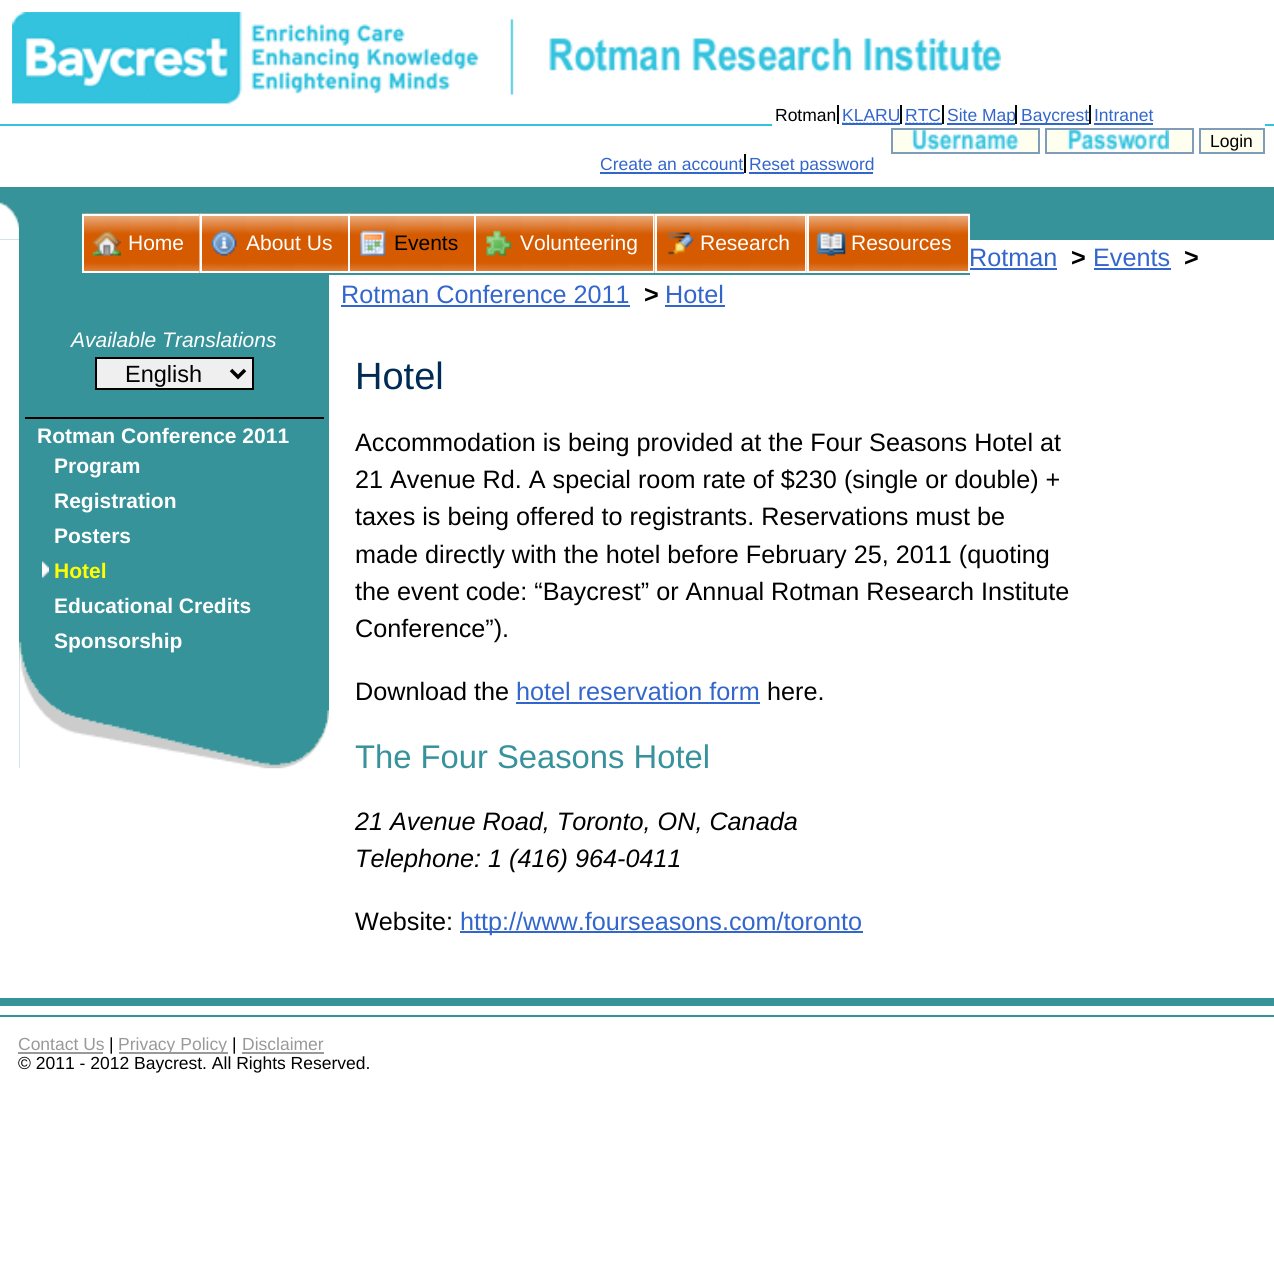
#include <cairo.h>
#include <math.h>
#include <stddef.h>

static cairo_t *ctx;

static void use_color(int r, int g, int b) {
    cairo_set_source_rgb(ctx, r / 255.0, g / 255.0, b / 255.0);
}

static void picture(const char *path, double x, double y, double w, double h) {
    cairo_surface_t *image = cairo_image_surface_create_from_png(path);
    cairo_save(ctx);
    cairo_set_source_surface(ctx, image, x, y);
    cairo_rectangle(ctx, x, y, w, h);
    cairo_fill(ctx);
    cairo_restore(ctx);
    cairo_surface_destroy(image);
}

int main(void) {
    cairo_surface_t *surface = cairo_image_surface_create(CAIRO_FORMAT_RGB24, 1274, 1261);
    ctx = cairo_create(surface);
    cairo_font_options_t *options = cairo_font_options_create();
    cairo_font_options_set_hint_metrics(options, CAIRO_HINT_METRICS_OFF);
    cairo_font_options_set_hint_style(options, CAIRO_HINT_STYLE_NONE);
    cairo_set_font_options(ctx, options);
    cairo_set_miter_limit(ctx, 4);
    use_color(255, 255, 255);
    cairo_paint(ctx);
    use_color(51, 195, 222);
    cairo_rectangle(ctx, 0, 124, 1274, 2);
    cairo_fill(ctx);
    picture("img1.png", 12, 12, 989, 92);
    picture("img2.png", 12, 12, 230, 92);
    use_color(255, 255, 255);
    cairo_rectangle(ctx, 772, 124, 493, 2);
    cairo_fill(ctx);
    cairo_select_font_face(ctx, "Liberation Sans", CAIRO_FONT_SLANT_NORMAL, CAIRO_FONT_WEIGHT_NORMAL);
    cairo_set_font_size(ctx, 17.5);
    use_color(0, 0, 0);
    cairo_move_to(ctx, 775, 121);
    cairo_show_text(ctx, "Rotman");
    use_color(0, 6, 7);
    cairo_rectangle(ctx, 837, 105, 2, 19);
    cairo_fill(ctx);
    use_color(51, 102, 204);
    cairo_move_to(ctx, 842, 121);
    cairo_show_text(ctx, "KLARU");
    cairo_new_path(ctx);
    cairo_move_to(ctx, 842, 123.5);
    cairo_line_to(ctx, 900, 123.5);
    cairo_set_line_width(ctx, 1.8);
    cairo_set_dash(ctx, (double[]){1.75, 1.75}, 2, 0);
    cairo_stroke(ctx);
    cairo_rectangle(ctx, 842, 123, 58, 2);
    cairo_fill(ctx);
    use_color(0, 6, 7);
    cairo_rectangle(ctx, 900, 105, 2, 19);
    cairo_fill(ctx);
    use_color(51, 102, 204);
    cairo_move_to(ctx, 905, 121);
    cairo_show_text(ctx, "RTC");
    cairo_new_path(ctx);
    cairo_move_to(ctx, 905.5, 123.5);
    cairo_line_to(ctx, 941.5, 123.5);
    cairo_stroke(ctx);
    cairo_rectangle(ctx, 905, 123, 37, 2);
    cairo_fill(ctx);
    use_color(0, 6, 7);
    cairo_rectangle(ctx, 942, 105, 2, 19);
    cairo_fill(ctx);
    use_color(51, 102, 204);
    cairo_rectangle(ctx, 947, 123, 68, 2);
    cairo_fill(ctx);
    cairo_move_to(ctx, 947, 121);
    cairo_show_text(ctx, "Site Map");
    use_color(0, 6, 7);
    cairo_rectangle(ctx, 1015, 105, 2, 19);
    cairo_fill(ctx);
    use_color(51, 102, 204);
    cairo_rectangle(ctx, 1020, 123, 69, 2);
    cairo_fill(ctx);
    cairo_move_to(ctx, 1021, 121);
    cairo_show_text(ctx, "Baycrest");
    use_color(0, 6, 7);
    cairo_rectangle(ctx, 1089, 105, 2, 19);
    cairo_fill(ctx);
    use_color(51, 102, 204);
    cairo_move_to(ctx, 1094, 121);
    cairo_show_text(ctx, "Intranet");
    cairo_rectangle(ctx, 1094, 123, 59, 2);
    cairo_fill(ctx);
    use_color(255, 255, 239);
    cairo_rectangle(ctx, 893, 130, 145, 22);
    cairo_fill(ctx);
    picture("img3.png", 911, 130, 108, 22);
    cairo_rectangle(ctx, 892, 129, 147, 24);
    use_color(127, 157, 185);
    cairo_set_line_width(ctx, 2);
    cairo_set_dash(ctx, NULL, 0, 0);
    cairo_stroke(ctx);
    use_color(255, 255, 239);
    cairo_rectangle(ctx, 1047, 130, 145, 22);
    cairo_fill(ctx);
    picture("img4.png", 1067, 130, 102, 22);
    cairo_rectangle(ctx, 1046, 129, 147, 24);
    use_color(127, 157, 185);
    cairo_stroke(ctx);
    use_color(255, 255, 239);
    cairo_rectangle(ctx, 1200, 129, 64, 24);
    cairo_fill_preserve(ctx);
    use_color(127, 157, 185);
    cairo_stroke(ctx);
    use_color(0, 0, 0);
    cairo_move_to(ctx, 1210, 147);
    cairo_show_text(ctx, "Login");
    use_color(51, 102, 204);
    cairo_move_to(ctx, 600, 170);
    cairo_show_text(ctx, "Create an account");
    cairo_rectangle(ctx, 600, 172, 144, 2);
    cairo_fill(ctx);
    use_color(0, 6, 7);
    cairo_rectangle(ctx, 744, 154, 2, 19);
    cairo_fill(ctx);
    use_color(51, 102, 204);
    cairo_rectangle(ctx, 749, 172, 124, 2);
    cairo_fill(ctx);
    cairo_move_to(ctx, 749, 170);
    cairo_show_text(ctx, "Reset password");
    use_color(55, 147, 154);
    cairo_rectangle(ctx, 0, 187, 1274, 53);
    cairo_fill(ctx);
    picture("img5.png", 0, 202, 20, 38);
    cairo_rectangle(ctx, 19, 222, 951, 53);
    cairo_fill(ctx);
    picture("img6.png", 82, 213, 120, 58);
    picture("img12.png", 92, 230, 29, 26);
    cairo_rectangle(ctx, 83, 215, 117, 57);
    use_color(255, 255, 255);
    cairo_stroke(ctx);
    picture("img7.png", 199, 213, 151, 60);
    picture("img13.png", 211, 230, 26, 26);
    cairo_rectangle(ctx, 201, 215, 148, 57);
    cairo_stroke(ctx);
    picture("img8.png", 348, 213, 128, 58);
    picture("img14.png", 360, 230, 26, 26);
    cairo_rectangle(ctx, 349, 215, 126, 57);
    cairo_stroke(ctx);
    picture("img9.png", 474, 213, 181, 58);
    picture("img15.png", 486, 230, 26, 26);
    cairo_rectangle(ctx, 475, 215, 179, 57);
    cairo_stroke(ctx);
    picture("img10.png", 654, 213, 153, 60);
    picture("img16.png", 668, 232, 25, 23);
    cairo_rectangle(ctx, 656, 215, 150, 57);
    cairo_stroke(ctx);
    picture("img11.png", 806, 213, 164, 60);
    cairo_set_font_size(ctx, 21);
    cairo_move_to(ctx, 128, 250);
    cairo_show_text(ctx, "Home");
    cairo_move_to(ctx, 246, 250);
    cairo_show_text(ctx, "About Us");
    use_color(0, 0, 0);
    cairo_move_to(ctx, 394, 250);
    cairo_show_text(ctx, "Events");
    use_color(255, 255, 255);
    cairo_move_to(ctx, 520, 250);
    cairo_show_text(ctx, "Volunteering");
    cairo_move_to(ctx, 700, 250);
    cairo_show_text(ctx, "Research");
    picture("img17.png", 816, 232, 30, 24);
    cairo_rectangle(ctx, 808, 215, 161, 57);
    cairo_stroke(ctx);
    cairo_move_to(ctx, 851, 250);
    cairo_show_text(ctx, "Resources");
    use_color(55, 147, 154);
    cairo_rectangle(ctx, 19, 275, 310, 493);
    cairo_fill(ctx);
    picture("img18.png", 19, 641, 310, 128);
    cairo_select_font_face(ctx, "Liberation Sans", CAIRO_FONT_SLANT_ITALIC, CAIRO_FONT_WEIGHT_NORMAL);
    use_color(255, 255, 255);
    cairo_move_to(ctx, 71, 347);
    cairo_show_text(ctx, "Available Translations");
    use_color(239, 239, 239);
    cairo_rectangle(ctx, 96, 358, 157, 31);
    cairo_fill_preserve(ctx);
    use_color(0, 0, 0);
    cairo_stroke(ctx);
    cairo_new_path(ctx);
    cairo_move_to(ctx, 231, 370);
    cairo_line_to(ctx, 238, 377);
    cairo_line_to(ctx, 245, 370);
    cairo_set_line_width(ctx, 3.5);
    cairo_stroke(ctx);
    cairo_select_font_face(ctx, "Liberation Sans", CAIRO_FONT_SLANT_NORMAL, CAIRO_FONT_WEIGHT_NORMAL);
    cairo_set_font_size(ctx, 23.5);
    cairo_move_to(ctx, 125, 382);
    cairo_show_text(ctx, "English");
    cairo_rectangle(ctx, 25, 417, 299, 2);
    cairo_fill(ctx);
    cairo_select_font_face(ctx, "Liberation Sans", CAIRO_FONT_SLANT_NORMAL, CAIRO_FONT_WEIGHT_BOLD);
    cairo_set_font_size(ctx, 21);
    use_color(255, 255, 255);
    cairo_move_to(ctx, 37, 443);
    cairo_show_text(ctx, "Rotman Conference 2011");
    cairo_move_to(ctx, 54, 473);
    cairo_show_text(ctx, "Program");
    cairo_move_to(ctx, 54, 508);
    cairo_show_text(ctx, "Registration");
    cairo_move_to(ctx, 54, 543);
    cairo_show_text(ctx, "Posters");
    picture("img19.png", 42, 561, 7, 17);
    use_color(255, 255, 0);
    cairo_move_to(ctx, 54, 578);
    cairo_show_text(ctx, "Hotel");
    use_color(255, 255, 255);
    cairo_move_to(ctx, 54, 613);
    cairo_show_text(ctx, "Educational Credits");
    cairo_move_to(ctx, 54, 648);
    cairo_show_text(ctx, "Sponsorship");
    cairo_select_font_face(ctx, "Liberation Sans", CAIRO_FONT_SLANT_NORMAL, CAIRO_FONT_WEIGHT_NORMAL);
    cairo_set_font_size(ctx, 25.2);
    use_color(51, 102, 204);
    cairo_move_to(ctx, 969, 266);
    cairo_show_text(ctx, "Rotman");
    cairo_rectangle(ctx, 970, 268, 87, 2);
    cairo_fill(ctx);
    cairo_select_font_face(ctx, "Liberation Sans", CAIRO_FONT_SLANT_NORMAL, CAIRO_FONT_WEIGHT_BOLD);
    use_color(0, 0, 0);
    cairo_move_to(ctx, 1071, 266);
    cairo_show_text(ctx, ">");
    cairo_select_font_face(ctx, "Liberation Sans", CAIRO_FONT_SLANT_NORMAL, CAIRO_FONT_WEIGHT_NORMAL);
    use_color(51, 102, 204);
    cairo_move_to(ctx, 1093, 266);
    cairo_show_text(ctx, "Events");
    cairo_rectangle(ctx, 1094, 268, 77, 2);
    cairo_fill(ctx);
    cairo_select_font_face(ctx, "Liberation Sans", CAIRO_FONT_SLANT_NORMAL, CAIRO_FONT_WEIGHT_BOLD);
    use_color(0, 0, 0);
    cairo_move_to(ctx, 1184, 266);
    cairo_show_text(ctx, ">");
    cairo_select_font_face(ctx, "Liberation Sans", CAIRO_FONT_SLANT_NORMAL, CAIRO_FONT_WEIGHT_NORMAL);
    use_color(51, 102, 204);
    cairo_move_to(ctx, 341, 303);
    cairo_show_text(ctx, "Rotman Conference 2011");
    cairo_rectangle(ctx, 341, 305, 289, 2);
    cairo_fill(ctx);
    cairo_select_font_face(ctx, "Liberation Sans", CAIRO_FONT_SLANT_NORMAL, CAIRO_FONT_WEIGHT_BOLD);
    use_color(0, 0, 0);
    cairo_move_to(ctx, 644, 303);
    cairo_show_text(ctx, ">");
    cairo_select_font_face(ctx, "Liberation Sans", CAIRO_FONT_SLANT_NORMAL, CAIRO_FONT_WEIGHT_NORMAL);
    use_color(51, 102, 204);
    cairo_move_to(ctx, 665, 303);
    cairo_show_text(ctx, "Hotel");
    cairo_rectangle(ctx, 665, 305, 60, 2);
    cairo_fill(ctx);
    cairo_set_font_size(ctx, 38);
    use_color(0, 43, 85);
    cairo_move_to(ctx, 355, 389);
    cairo_show_text(ctx, "Hotel");
    cairo_set_font_size(ctx, 25.2);
    use_color(0, 0, 0);
    cairo_move_to(ctx, 355, 451);
    cairo_show_text(ctx, "Accommodation is being provided at the Four Seasons Hotel at");
    cairo_move_to(ctx, 355, 488);
    cairo_show_text(ctx, "21 Avenue Rd. A special room rate of $230 (single or double) +");
    cairo_move_to(ctx, 355, 525);
    cairo_show_text(ctx, "taxes is being offered to registrants. Reservations must be");
    cairo_move_to(ctx, 355, 563);
    cairo_show_text(ctx, "made directly with the hotel before February 25, 2011 (quoting");
    cairo_move_to(ctx, 355, 600);
    cairo_show_text(ctx, "the event code: “Baycrest” or Annual Rotman Research Institute");
    cairo_move_to(ctx, 355, 637);
    cairo_show_text(ctx, "Conference”).");
    cairo_move_to(ctx, 355, 700);
    cairo_show_text(ctx, "Download the");
    use_color(51, 102, 204);
    cairo_move_to(ctx, 516, 700);
    cairo_show_text(ctx, "hotel reservation form");
    cairo_rectangle(ctx, 516, 702, 244, 2);
    cairo_fill(ctx);
    use_color(0, 0, 0);
    cairo_move_to(ctx, 767, 700);
    cairo_show_text(ctx, "here.");
    cairo_set_font_size(ctx, 32.75);
    use_color(55, 146, 155);
    cairo_move_to(ctx, 355, 768);
    cairo_show_text(ctx, "The Four Seasons Hotel");
    cairo_select_font_face(ctx, "Liberation Sans", CAIRO_FONT_SLANT_ITALIC, CAIRO_FONT_WEIGHT_NORMAL);
    cairo_set_font_size(ctx, 25.2);
    use_color(0, 0, 0);
    cairo_move_to(ctx, 355, 830);
    cairo_show_text(ctx, "21 Avenue Road, Toronto, ON, Canada");
    cairo_move_to(ctx, 355, 867);
    cairo_show_text(ctx, "Telephone: 1 (416) 964-0411");
    cairo_select_font_face(ctx, "Liberation Sans", CAIRO_FONT_SLANT_NORMAL, CAIRO_FONT_WEIGHT_NORMAL);
    cairo_move_to(ctx, 355, 930);
    cairo_show_text(ctx, "Website:");
    use_color(51, 102, 204);
    cairo_rectangle(ctx, 460, 931, 403, 2);
    cairo_fill(ctx);
    cairo_move_to(ctx, 460, 930);
    cairo_show_text(ctx, "http://www.fourseasons.com/toronto");
    use_color(55, 147, 154);
    cairo_rectangle(ctx, 0, 998, 1274, 8);
    cairo_fill(ctx);
    cairo_rectangle(ctx, 0, 1015, 1274, 2);
    cairo_fill(ctx);
    cairo_set_font_size(ctx, 17.5);
    use_color(153, 153, 153);
    cairo_move_to(ctx, 18, 1050);
    cairo_show_text(ctx, "Contact Us");
    cairo_rectangle(ctx, 18, 1052, 85, 2);
    cairo_fill(ctx);
    use_color(0, 0, 0);
    cairo_move_to(ctx, 109, 1050);
    cairo_show_text(ctx, "|");
    use_color(153, 153, 153);
    cairo_rectangle(ctx, 119, 1052, 109, 2);
    cairo_fill(ctx);
    cairo_move_to(ctx, 118, 1050);
    cairo_show_text(ctx, "Privacy Policy");
    use_color(0, 0, 0);
    cairo_move_to(ctx, 232, 1050);
    cairo_show_text(ctx, "|");
    use_color(153, 153, 153);
    cairo_move_to(ctx, 242, 1050);
    cairo_show_text(ctx, "Disclaimer");
    cairo_rectangle(ctx, 242, 1052, 82, 2);
    cairo_fill(ctx);
    use_color(0, 0, 0);
    cairo_move_to(ctx, 18, 1069);
    cairo_show_text(ctx, "© 2011 - 2012 Baycrest. All Rights Reserved.");
    cairo_surface_write_to_png(surface, "result.png");
    cairo_font_options_destroy(options);
    cairo_destroy(ctx);
    cairo_surface_destroy(surface);
    return 0;
}
